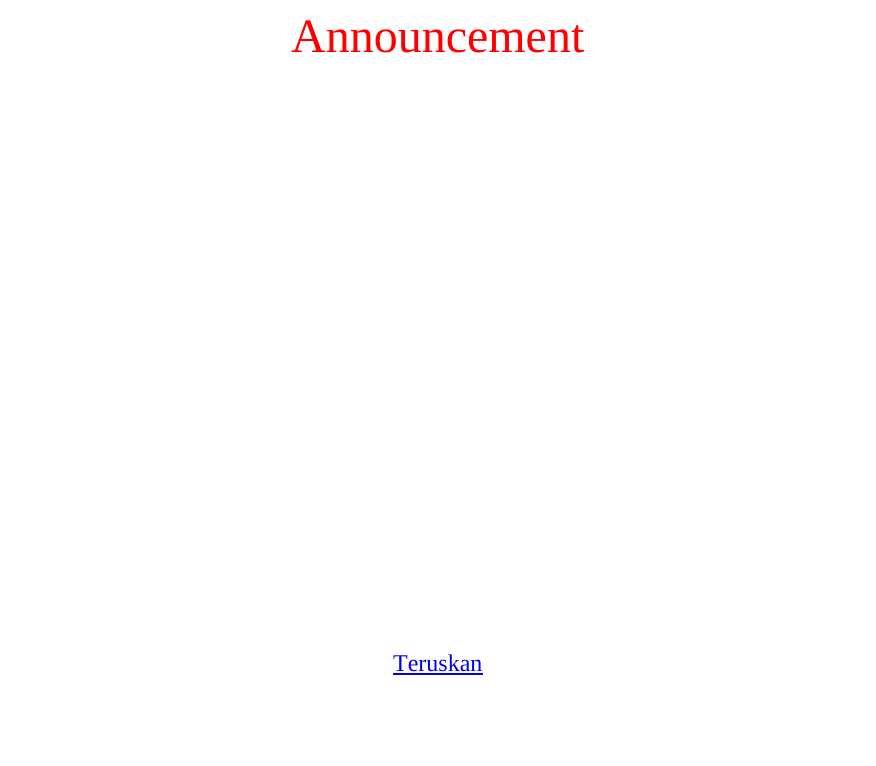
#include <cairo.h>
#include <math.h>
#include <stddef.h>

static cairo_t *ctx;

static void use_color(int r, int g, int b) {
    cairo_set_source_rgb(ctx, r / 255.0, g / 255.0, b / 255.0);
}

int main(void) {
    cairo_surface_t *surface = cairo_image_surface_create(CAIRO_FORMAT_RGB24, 876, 766);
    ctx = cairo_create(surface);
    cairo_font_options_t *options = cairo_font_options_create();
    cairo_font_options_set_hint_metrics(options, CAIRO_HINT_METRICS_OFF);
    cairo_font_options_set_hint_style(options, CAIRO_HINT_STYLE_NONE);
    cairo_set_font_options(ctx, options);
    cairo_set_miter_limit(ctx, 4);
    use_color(255, 255, 255);
    cairo_paint(ctx);
    cairo_select_font_face(ctx, "Liberation Serif", CAIRO_FONT_SLANT_NORMAL, CAIRO_FONT_WEIGHT_NORMAL);
    cairo_set_font_size(ctx, 48);
    use_color(255, 0, 0);
    cairo_move_to(ctx, 291, 52);
    cairo_show_text(ctx, "Announcement");
    cairo_set_font_size(ctx, 24);
    use_color(0, 0, 238);
    cairo_move_to(ctx, 393, 671);
    cairo_show_text(ctx, "Teruskan");
    cairo_rectangle(ctx, 393, 673, 90, 2);
    cairo_fill(ctx);
    cairo_surface_write_to_png(surface, "result.png");
    cairo_font_options_destroy(options);
    cairo_destroy(ctx);
    cairo_surface_destroy(surface);
    return 0;
}
